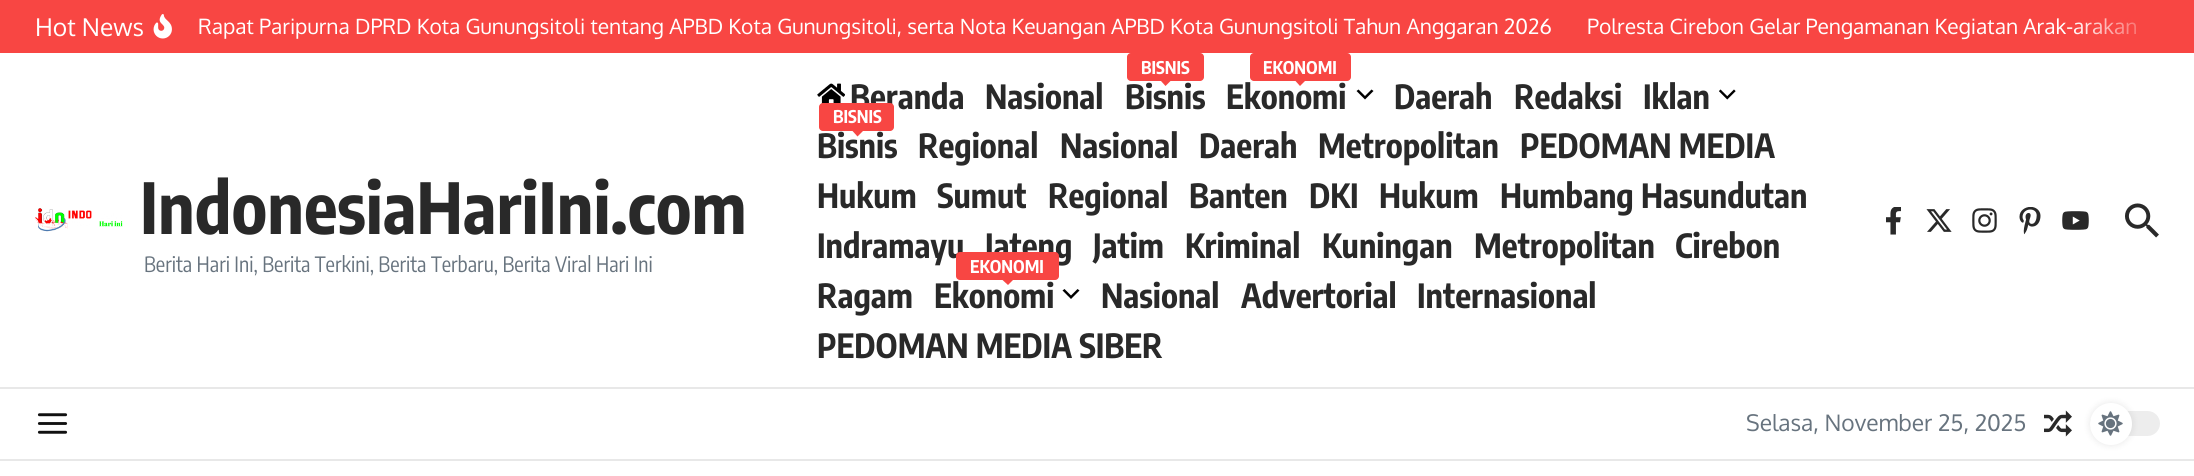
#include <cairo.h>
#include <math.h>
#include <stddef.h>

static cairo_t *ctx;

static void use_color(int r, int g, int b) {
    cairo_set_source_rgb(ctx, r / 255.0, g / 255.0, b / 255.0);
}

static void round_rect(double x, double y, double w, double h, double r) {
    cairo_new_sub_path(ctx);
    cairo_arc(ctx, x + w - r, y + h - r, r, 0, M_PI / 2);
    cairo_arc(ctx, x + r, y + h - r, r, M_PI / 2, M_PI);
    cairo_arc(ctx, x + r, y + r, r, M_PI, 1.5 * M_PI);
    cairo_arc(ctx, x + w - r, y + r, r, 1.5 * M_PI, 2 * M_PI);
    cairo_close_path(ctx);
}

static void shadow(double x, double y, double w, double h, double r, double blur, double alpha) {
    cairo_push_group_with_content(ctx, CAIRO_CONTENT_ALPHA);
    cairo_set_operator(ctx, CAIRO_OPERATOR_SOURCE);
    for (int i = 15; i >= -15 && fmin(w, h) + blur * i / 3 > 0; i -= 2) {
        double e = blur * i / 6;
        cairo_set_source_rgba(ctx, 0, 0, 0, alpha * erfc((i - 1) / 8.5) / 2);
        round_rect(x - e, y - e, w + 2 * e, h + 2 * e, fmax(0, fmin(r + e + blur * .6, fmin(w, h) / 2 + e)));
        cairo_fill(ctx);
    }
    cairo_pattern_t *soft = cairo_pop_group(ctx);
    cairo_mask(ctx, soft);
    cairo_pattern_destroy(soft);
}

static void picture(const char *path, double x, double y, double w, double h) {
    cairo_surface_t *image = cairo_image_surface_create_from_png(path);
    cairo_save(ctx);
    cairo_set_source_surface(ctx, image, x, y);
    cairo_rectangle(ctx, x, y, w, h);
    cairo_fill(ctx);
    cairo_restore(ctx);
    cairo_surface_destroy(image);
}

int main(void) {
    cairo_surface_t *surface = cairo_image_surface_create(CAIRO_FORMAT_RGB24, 2194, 476);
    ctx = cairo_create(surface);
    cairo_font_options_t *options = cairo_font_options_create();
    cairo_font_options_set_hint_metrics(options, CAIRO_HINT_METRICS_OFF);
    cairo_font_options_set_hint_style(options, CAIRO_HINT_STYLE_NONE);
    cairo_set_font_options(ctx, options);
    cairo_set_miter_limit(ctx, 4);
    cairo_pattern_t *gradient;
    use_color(255, 255, 255);
    cairo_paint(ctx);
    use_color(248, 70, 67);
    cairo_rectangle(ctx, 0, 0, 2194, 53);
    cairo_fill(ctx);
    cairo_select_font_face(ctx, "Oxygen", CAIRO_FONT_SLANT_NORMAL, CAIRO_FONT_WEIGHT_NORMAL);
    cairo_set_font_size(ctx, 24.5);
    use_color(255, 255, 255);
    cairo_move_to(ctx, 35, 36);
    cairo_show_text(ctx, "Hot News");
    picture("img1.png", 153, 14, 19, 25);
    cairo_set_font_size(ctx, 21);
    cairo_move_to(ctx, 198, 34);
    cairo_show_text(ctx, "Rapat Paripurna DPRD Kota Gunungsitoli tentang APBD Kota Gunungsitoli, serta Nota Keuangan APBD Kota Gunungsitoli Tahun Anggaran 2026");
    cairo_move_to(ctx, 1587, 34);
    cairo_show_text(ctx, "Polresta Cirebon Gelar Pengamanan Kegiatan Arak-arakan");
    gradient = cairo_pattern_create_linear(2072, 27, 2160, 27);
    cairo_pattern_add_color_stop_rgba(gradient, 0, 0.973, 0.275, 0.263, 0);
    cairo_pattern_add_color_stop_rgba(gradient, 1, 0.973, 0.275, 0.263, 1);
    cairo_set_source(ctx, gradient);
    cairo_pattern_destroy(gradient);
    cairo_rectangle(ctx, 2074, 18, 62, 17);
    cairo_fill(ctx);
    use_color(232, 232, 232);
    cairo_rectangle(ctx, 0, 387, 2194, 2);
    cairo_fill(ctx);
    picture("img2.png", 35, 208, 88, 24);
    cairo_select_font_face(ctx, "Encode Sans Condensed", CAIRO_FONT_SLANT_NORMAL, CAIRO_FONT_WEIGHT_BOLD);
    cairo_set_font_size(ctx, 70);
    use_color(41, 41, 41);
    cairo_move_to(ctx, 140, 234);
    cairo_show_text(ctx, "IndonesiaHariIni.com");
    cairo_select_font_face(ctx, "Encode Sans Condensed", CAIRO_FONT_SLANT_NORMAL, CAIRO_FONT_WEIGHT_NORMAL);
    cairo_set_font_size(ctx, 21);
    use_color(103, 115, 126);
    cairo_move_to(ctx, 144, 272);
    cairo_show_text(ctx, "Berita Hari Ini, Berita Terkini, Berita Terbaru, Berita Viral Hari Ini");
    picture("img3.png", 817, 83, 28, 21);
    cairo_select_font_face(ctx, "Encode Sans Condensed", CAIRO_FONT_SLANT_NORMAL, CAIRO_FONT_WEIGHT_BOLD);
    cairo_set_font_size(ctx, 33.25);
    use_color(41, 41, 41);
    cairo_move_to(ctx, 850, 109);
    cairo_show_text(ctx, "Beranda");
    cairo_move_to(ctx, 985, 109);
    cairo_show_text(ctx, "Nasional");
    use_color(248, 70, 67);
    round_rect(1127, 53, 77, 28, 4);
    cairo_fill(ctx);
    cairo_set_font_size(ctx, 17.5);
    use_color(255, 255, 255);
    cairo_move_to(ctx, 1141, 74);
    cairo_show_text(ctx, "BISNIS");
    cairo_set_font_size(ctx, 33.25);
    use_color(41, 41, 41);
    cairo_move_to(ctx, 1125, 109);
    cairo_show_text(ctx, "Bisnis");
    use_color(248, 70, 67);
    cairo_new_path(ctx);
    cairo_move_to(ctx, 1160.5, 80.5);
    cairo_line_to(ctx, 1171, 80.5);
    cairo_line_to(ctx, 1165.5, 86);
    cairo_close_path(ctx);
    cairo_fill(ctx);
    round_rect(1250, 53, 101, 28, 4);
    cairo_fill(ctx);
    cairo_set_font_size(ctx, 17.5);
    use_color(255, 255, 255);
    cairo_move_to(ctx, 1263, 74);
    cairo_show_text(ctx, "EKONOMI");
    cairo_set_font_size(ctx, 33.25);
    use_color(41, 41, 41);
    cairo_move_to(ctx, 1226, 109);
    cairo_show_text(ctx, "Ekonomi");
    use_color(248, 70, 67);
    cairo_new_path(ctx);
    cairo_move_to(ctx, 1295, 80.5);
    cairo_line_to(ctx, 1305.5, 80.5);
    cairo_line_to(ctx, 1300, 86);
    cairo_close_path(ctx);
    cairo_fill(ctx);
    use_color(0, 0, 0);
    cairo_new_path(ctx);
    cairo_move_to(ctx, 1356.5, 91);
    cairo_line_to(ctx, 1365, 99.5);
    cairo_line_to(ctx, 1373.5, 91);
    cairo_line_to(ctx, 1371.5, 89.5);
    cairo_line_to(ctx, 1365, 96);
    cairo_line_to(ctx, 1358.5, 89.5);
    cairo_close_path(ctx);
    cairo_fill(ctx);
    use_color(41, 41, 41);
    cairo_move_to(ctx, 1394, 109);
    cairo_show_text(ctx, "Daerah");
    cairo_move_to(ctx, 1514, 109);
    cairo_show_text(ctx, "Redaksi");
    cairo_move_to(ctx, 1643, 109);
    cairo_show_text(ctx, "Iklan");
    picture("img4.png", 1719, 89, 17, 11);
    use_color(248, 70, 67);
    round_rect(819, 103, 75, 28, 4);
    cairo_fill(ctx);
    cairo_set_font_size(ctx, 17.5);
    use_color(255, 255, 255);
    cairo_move_to(ctx, 833, 123);
    cairo_show_text(ctx, "BISNIS");
    cairo_set_font_size(ctx, 33.25);
    use_color(41, 41, 41);
    cairo_move_to(ctx, 817, 158);
    cairo_show_text(ctx, "Bisnis");
    use_color(248, 70, 67);
    cairo_new_path(ctx);
    cairo_move_to(ctx, 852.5, 131);
    cairo_line_to(ctx, 863, 131);
    cairo_line_to(ctx, 857.5, 136.5);
    cairo_close_path(ctx);
    cairo_fill(ctx);
    use_color(41, 41, 41);
    cairo_move_to(ctx, 918, 158);
    cairo_show_text(ctx, "Regional");
    cairo_move_to(ctx, 1060, 158);
    cairo_show_text(ctx, "Nasional");
    cairo_move_to(ctx, 1199, 158);
    cairo_show_text(ctx, "Daerah");
    cairo_move_to(ctx, 1318, 158);
    cairo_show_text(ctx, "Metropolitan");
    cairo_move_to(ctx, 1520, 158);
    cairo_show_text(ctx, "PEDOMAN MEDIA");
    cairo_move_to(ctx, 817, 208);
    cairo_show_text(ctx, "Hukum");
    cairo_move_to(ctx, 937, 208);
    cairo_show_text(ctx, "Sumut");
    cairo_move_to(ctx, 1048, 208);
    cairo_show_text(ctx, "Regional");
    cairo_move_to(ctx, 1189, 208);
    cairo_show_text(ctx, "Banten");
    cairo_move_to(ctx, 1309, 208);
    cairo_show_text(ctx, "DKI");
    cairo_move_to(ctx, 1379, 208);
    cairo_show_text(ctx, "Hukum");
    cairo_move_to(ctx, 1500, 208);
    cairo_show_text(ctx, "Humbang Hasundutan");
    cairo_move_to(ctx, 817, 258);
    cairo_show_text(ctx, "Indramayu");
    cairo_move_to(ctx, 985, 258);
    cairo_show_text(ctx, "Jateng");
    cairo_move_to(ctx, 1093, 258);
    cairo_show_text(ctx, "Jatim");
    cairo_move_to(ctx, 1185, 258);
    cairo_show_text(ctx, "Kriminal");
    cairo_move_to(ctx, 1322, 258);
    cairo_show_text(ctx, "Kuningan");
    cairo_move_to(ctx, 1474, 258);
    cairo_show_text(ctx, "Metropolitan");
    cairo_move_to(ctx, 1675, 258);
    cairo_show_text(ctx, "Cirebon");
    cairo_move_to(ctx, 817, 308);
    cairo_show_text(ctx, "Ragam");
    use_color(248, 70, 67);
    round_rect(956, 252, 103, 28, 4);
    cairo_fill(ctx);
    cairo_set_font_size(ctx, 17.5);
    use_color(255, 255, 255);
    cairo_move_to(ctx, 970, 273);
    cairo_show_text(ctx, "EKONOMI");
    cairo_set_font_size(ctx, 33.25);
    use_color(41, 41, 41);
    cairo_move_to(ctx, 934, 308);
    cairo_show_text(ctx, "Ekonomi");
    use_color(248, 70, 67);
    cairo_new_path(ctx);
    cairo_move_to(ctx, 1002.5, 280);
    cairo_line_to(ctx, 1013, 280);
    cairo_line_to(ctx, 1008, 285);
    cairo_close_path(ctx);
    cairo_fill(ctx);
    use_color(0, 0, 0);
    cairo_new_path(ctx);
    cairo_move_to(ctx, 1062.5, 290.5);
    cairo_line_to(ctx, 1071, 299);
    cairo_line_to(ctx, 1079.5, 290.5);
    cairo_line_to(ctx, 1077.5, 289);
    cairo_line_to(ctx, 1071, 295.5);
    cairo_line_to(ctx, 1064.5, 289);
    cairo_close_path(ctx);
    cairo_fill(ctx);
    use_color(41, 41, 41);
    cairo_move_to(ctx, 1101, 308);
    cairo_show_text(ctx, "Nasional");
    cairo_move_to(ctx, 1241, 308);
    cairo_show_text(ctx, "Advertorial");
    cairo_move_to(ctx, 1417, 308);
    cairo_show_text(ctx, "Internasional");
    cairo_move_to(ctx, 817, 358);
    cairo_show_text(ctx, "PEDOMAN MEDIA SIBER");
    picture("img5.png", 1886, 207, 15, 28);
    picture("img6.png", 1926, 209, 26, 23);
    picture("img7.png", 1972, 208, 25, 25);
    picture("img8.png", 2019, 207, 22, 28);
    picture("img9.png", 2062, 211, 27, 19);
    picture("img10.png", 2125, 203, 34, 35);
    use_color(232, 232, 232);
    cairo_rectangle(ctx, 0, 459, 2194, 2);
    cairo_fill(ctx);
    picture("img11.png", 37, 413, 31, 21);
    cairo_select_font_face(ctx, "Oxygen", CAIRO_FONT_SLANT_NORMAL, CAIRO_FONT_WEIGHT_NORMAL);
    cairo_set_font_size(ctx, 22.75);
    use_color(103, 115, 126);
    cairo_move_to(ctx, 1746, 431);
    cairo_show_text(ctx, "Selasa, November 25, 2025");
    picture("img12.png", 2044, 410, 28, 27);
    use_color(237, 237, 237);
    round_rect(2090, 411, 70, 25, 12.5);
    cairo_fill(ctx);
    use_color(0, 0, 0);
    shadow(2090, 403, 42, 42, 21, 3.5, 0.1);
    use_color(255, 255, 255);
    cairo_arc(ctx, 2111, 424, 21, 0, 2 * M_PI);
    cairo_fill(ctx);
    picture("img13.png", 2098, 411, 25, 25);
    cairo_surface_write_to_png(surface, "result.png");
    cairo_font_options_destroy(options);
    cairo_destroy(ctx);
    cairo_surface_destroy(surface);
    return 0;
}
